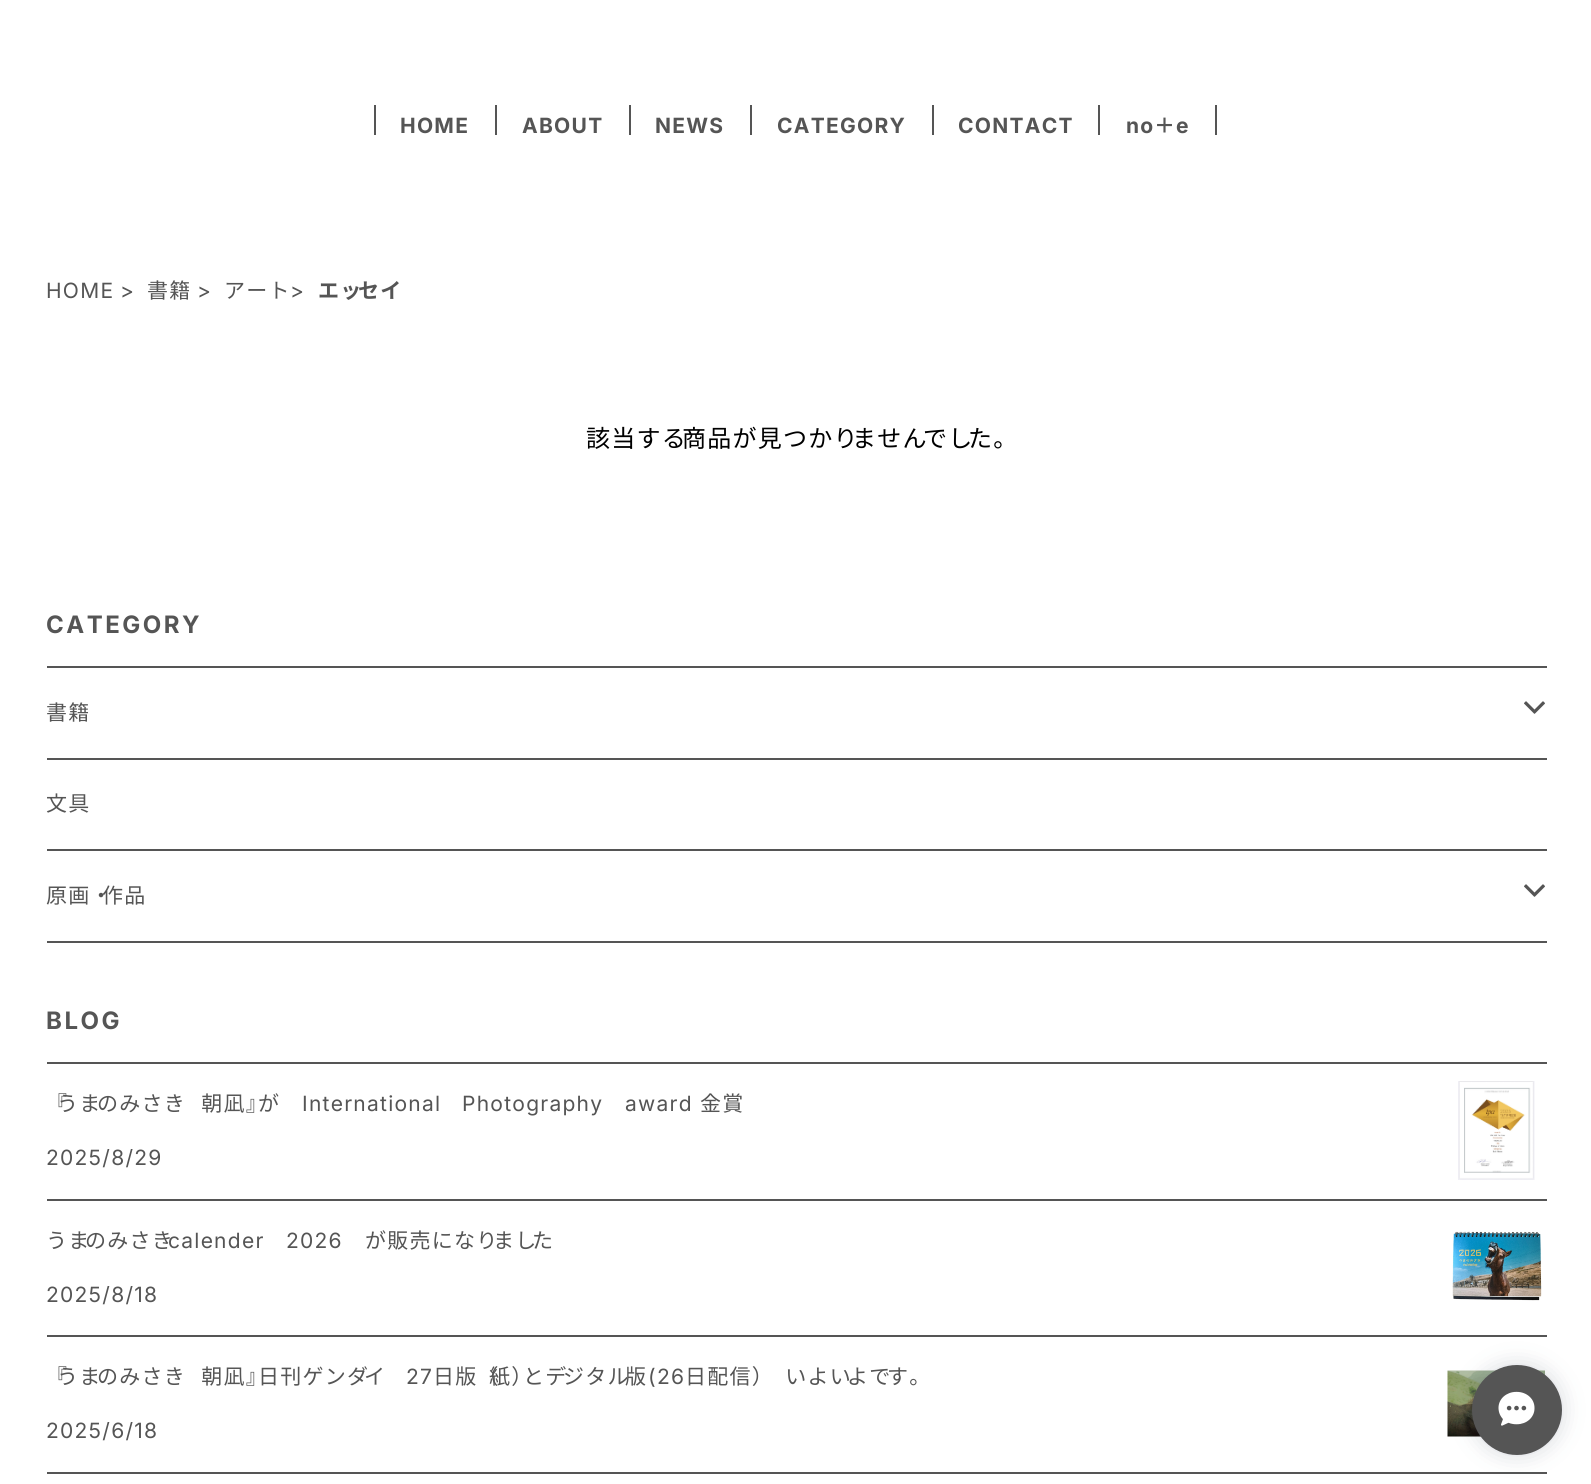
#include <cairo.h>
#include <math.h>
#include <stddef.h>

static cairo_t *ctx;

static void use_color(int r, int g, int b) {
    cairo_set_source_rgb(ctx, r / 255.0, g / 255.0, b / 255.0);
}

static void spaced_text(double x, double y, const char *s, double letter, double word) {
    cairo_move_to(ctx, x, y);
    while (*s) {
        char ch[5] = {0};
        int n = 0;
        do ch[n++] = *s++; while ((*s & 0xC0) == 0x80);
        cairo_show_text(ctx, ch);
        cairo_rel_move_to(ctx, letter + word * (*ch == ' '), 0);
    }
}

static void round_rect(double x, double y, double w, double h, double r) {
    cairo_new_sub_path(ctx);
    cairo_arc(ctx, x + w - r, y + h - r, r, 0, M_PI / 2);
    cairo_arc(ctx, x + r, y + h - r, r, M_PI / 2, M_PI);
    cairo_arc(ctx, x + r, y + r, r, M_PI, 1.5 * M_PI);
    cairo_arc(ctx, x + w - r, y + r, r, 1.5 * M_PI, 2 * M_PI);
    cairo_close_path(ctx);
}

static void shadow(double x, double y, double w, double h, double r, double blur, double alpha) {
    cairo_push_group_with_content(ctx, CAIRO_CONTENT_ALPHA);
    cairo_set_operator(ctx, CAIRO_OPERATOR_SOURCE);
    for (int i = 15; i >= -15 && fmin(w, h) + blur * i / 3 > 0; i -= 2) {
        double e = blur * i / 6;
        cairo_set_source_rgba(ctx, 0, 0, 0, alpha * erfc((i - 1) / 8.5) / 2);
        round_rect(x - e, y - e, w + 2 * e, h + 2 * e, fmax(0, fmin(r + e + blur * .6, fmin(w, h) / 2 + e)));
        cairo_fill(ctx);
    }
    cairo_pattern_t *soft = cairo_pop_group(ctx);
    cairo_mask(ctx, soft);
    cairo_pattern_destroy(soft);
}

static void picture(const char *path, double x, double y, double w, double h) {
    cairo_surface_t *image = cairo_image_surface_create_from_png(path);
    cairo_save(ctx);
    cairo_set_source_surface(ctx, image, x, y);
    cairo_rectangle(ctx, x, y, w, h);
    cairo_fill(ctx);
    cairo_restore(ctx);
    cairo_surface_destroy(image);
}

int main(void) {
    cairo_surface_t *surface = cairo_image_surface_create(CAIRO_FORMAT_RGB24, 1591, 1484);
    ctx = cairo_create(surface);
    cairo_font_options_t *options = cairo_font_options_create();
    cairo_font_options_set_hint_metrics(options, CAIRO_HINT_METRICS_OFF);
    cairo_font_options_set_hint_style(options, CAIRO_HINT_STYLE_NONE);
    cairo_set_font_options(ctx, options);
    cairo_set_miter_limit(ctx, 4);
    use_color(255, 255, 255);
    cairo_paint(ctx);
    use_color(85, 85, 85);
    cairo_rectangle(ctx, 495, 105, 2, 30);
    cairo_fill(ctx);
    cairo_rectangle(ctx, 374, 105, 2, 30);
    cairo_fill(ctx);
    cairo_select_font_face(ctx, "Inter", CAIRO_FONT_SLANT_NORMAL, CAIRO_FONT_WEIGHT_BOLD);
    cairo_set_font_size(ctx, 21);
    spaced_text(400, 133, "HOME", 1.25, 0);
    cairo_rectangle(ctx, 629, 105, 2, 30);
    cairo_fill(ctx);
    spaced_text(522, 133, "ABOUT", 1.25, 0);
    cairo_rectangle(ctx, 750, 105, 2, 30);
    cairo_fill(ctx);
    spaced_text(655, 133, "NEWS", 1.25, 0);
    cairo_rectangle(ctx, 932, 105, 2, 30);
    cairo_fill(ctx);
    spaced_text(777, 133, "CATEGORY", 1.25, 0);
    cairo_rectangle(ctx, 1098, 105, 2, 30);
    cairo_fill(ctx);
    spaced_text(958, 133, "CONTACT", 1.25, 0);
    cairo_rectangle(ctx, 1215, 105, 2, 30);
    cairo_fill(ctx);
    spaced_text(1126, 133, "no", 1.25, 0);
    cairo_select_font_face(ctx, "Noto Sans JP", CAIRO_FONT_SLANT_NORMAL, CAIRO_FONT_WEIGHT_BOLD);
    spaced_text(1154, 133, "＋", 1.25, 0);
    cairo_select_font_face(ctx, "Inter", CAIRO_FONT_SLANT_NORMAL, CAIRO_FONT_WEIGHT_BOLD);
    spaced_text(1176, 133, "e", 1.25, 0);
    cairo_select_font_face(ctx, "Inter", CAIRO_FONT_SLANT_NORMAL, CAIRO_FONT_WEIGHT_NORMAL);
    spaced_text(46, 298, "HOME", 1.25, 0);
    spaced_text(120, 298, ">", 1.25, 0);
    cairo_select_font_face(ctx, "Noto Sans JP", CAIRO_FONT_SLANT_NORMAL, CAIRO_FONT_WEIGHT_NORMAL);
    spaced_text(147, 298, "書籍", 1.25, 0);
    cairo_select_font_face(ctx, "Inter", CAIRO_FONT_SLANT_NORMAL, CAIRO_FONT_WEIGHT_NORMAL);
    spaced_text(197, 298, ">", 1.25, 0);
    cairo_select_font_face(ctx, "Noto Sans JP", CAIRO_FONT_SLANT_NORMAL, CAIRO_FONT_WEIGHT_NORMAL);
    spaced_text(224, 298, "アート", 1.25, 0);
    cairo_select_font_face(ctx, "Inter", CAIRO_FONT_SLANT_NORMAL, CAIRO_FONT_WEIGHT_NORMAL);
    spaced_text(290, 298, ">", 1.25, 0);
    cairo_select_font_face(ctx, "Noto Sans JP", CAIRO_FONT_SLANT_NORMAL, CAIRO_FONT_WEIGHT_BOLD);
    spaced_text(318, 298, "エッ", 1.25, 0);
    spaced_text(358, 298, "セイ", 1.25, 0);
    cairo_select_font_face(ctx, "Noto Sans JP", CAIRO_FONT_SLANT_NORMAL, CAIRO_FONT_WEIGHT_NORMAL);
    cairo_set_font_size(ctx, 24);
    use_color(0, 0, 0);
    spaced_text(586, 447, "該当する", 1.25, 0);
    spaced_text(682, 447, "商品が見つかり", 1.25, 0);
    spaced_text(852, 447, "ません", 1.25, 0);
    spaced_text(923, 447, "でし", 1.25, 0);
    spaced_text(968, 447, "た。", 1.25, 0);
    cairo_select_font_face(ctx, "Inter", CAIRO_FONT_SLANT_NORMAL, CAIRO_FONT_WEIGHT_BOLD);
    use_color(85, 85, 85);
    spaced_text(46, 633, "CATEGORY", 2.5, 0);
    cairo_rectangle(ctx, 47, 666, 1500, 2);
    cairo_fill(ctx);
    cairo_rectangle(ctx, 47, 941, 1500, 2);
    cairo_fill(ctx);
    cairo_select_font_face(ctx, "Noto Sans JP", CAIRO_FONT_SLANT_NORMAL, CAIRO_FONT_WEIGHT_NORMAL);
    cairo_set_font_size(ctx, 21);
    spaced_text(46, 720, "書籍", 1.25, 0);
    picture("img1.png", 1524, 701, 21, 13);
    cairo_rectangle(ctx, 47, 758, 1500, 2);
    cairo_fill(ctx);
    spaced_text(46, 811, "文具", 1.25, 0);
    cairo_rectangle(ctx, 47, 849, 1500, 2);
    cairo_fill(ctx);
    spaced_text(46, 903, "原画・", 1.25, 0);
    spaced_text(102, 903, "作品", 1.25, 0);
    picture("img1.png", 1524, 884, 21, 13);
    cairo_select_font_face(ctx, "Inter", CAIRO_FONT_SLANT_NORMAL, CAIRO_FONT_WEIGHT_BOLD);
    cairo_set_font_size(ctx, 24);
    spaced_text(46, 1029, "BLOG", 2.5, 0);
    cairo_rectangle(ctx, 47, 1472, 1500, 2);
    cairo_fill(ctx);
    cairo_rectangle(ctx, 47, 1062, 1500, 2);
    cairo_fill(ctx);
    cairo_select_font_face(ctx, "Noto Sans JP", CAIRO_FONT_SLANT_NORMAL, CAIRO_FONT_WEIGHT_NORMAL);
    cairo_set_font_size(ctx, 21);
    spaced_text(46, 1111, "『", 1.25, 0);
    spaced_text(57, 1111, "うま", 1.25, 0);
    spaced_text(97, 1111, "のみさき", 1.25, 0);
    spaced_text(179, 1111, "　朝凪』", 1.25, 0);
    spaced_text(258, 1111, "が", 1.25, 0);
    cairo_select_font_face(ctx, "Inter", CAIRO_FONT_SLANT_NORMAL, CAIRO_FONT_WEIGHT_NORMAL);
    spaced_text(302, 1111, "International", 1.25, 0);
    spaced_text(462, 1111, "Photography", 1.25, 0);
    spaced_text(625, 1111, "award", 1.25, 0);
    cairo_select_font_face(ctx, "Noto Sans JP", CAIRO_FONT_SLANT_NORMAL, CAIRO_FONT_WEIGHT_NORMAL);
    spaced_text(700, 1111, "金賞", 1.25, 0);
    cairo_select_font_face(ctx, "Inter", CAIRO_FONT_SLANT_NORMAL, CAIRO_FONT_WEIGHT_NORMAL);
    spaced_text(46, 1165, "2025/8/29", 1.25, 0);
    picture("img2.png", 1458, 1081, 77, 99);
    cairo_rectangle(ctx, 47, 1199, 1500, 2);
    cairo_fill(ctx);
    cairo_select_font_face(ctx, "Noto Sans JP", CAIRO_FONT_SLANT_NORMAL, CAIRO_FONT_WEIGHT_NORMAL);
    spaced_text(46, 1248, "うま", 1.25, 0);
    spaced_text(85, 1248, "のみさき", 1.25, 0);
    cairo_select_font_face(ctx, "Inter", CAIRO_FONT_SLANT_NORMAL, CAIRO_FONT_WEIGHT_NORMAL);
    spaced_text(168, 1248, "calender", 1.25, 0);
    spaced_text(286, 1248, "2026", 1.25, 0);
    cairo_select_font_face(ctx, "Noto Sans JP", CAIRO_FONT_SLANT_NORMAL, CAIRO_FONT_WEIGHT_NORMAL);
    spaced_text(365, 1248, "が販売になり", 1.25, 0);
    spaced_text(493, 1248, "まし", 1.25, 0);
    spaced_text(532, 1248, "た", 1.25, 0);
    cairo_select_font_face(ctx, "Inter", CAIRO_FONT_SLANT_NORMAL, CAIRO_FONT_WEIGHT_NORMAL);
    spaced_text(46, 1302, "2025/8/18", 1.25, 0);
    picture("img3.png", 1452, 1231, 90, 70);
    cairo_rectangle(ctx, 47, 1335, 1500, 2);
    cairo_fill(ctx);
    cairo_select_font_face(ctx, "Noto Sans JP", CAIRO_FONT_SLANT_NORMAL, CAIRO_FONT_WEIGHT_NORMAL);
    spaced_text(46, 1384, "『", 1.25, 0);
    spaced_text(57, 1384, "うま", 1.25, 0);
    spaced_text(97, 1384, "のみさき", 1.25, 0);
    spaced_text(179, 1384, "　朝凪』", 1.25, 0);
    spaced_text(258, 1384, "日刊ゲンダ", 1.25, 0);
    spaced_text(364, 1384, "イ", 1.25, 0);
    cairo_select_font_face(ctx, "Inter", CAIRO_FONT_SLANT_NORMAL, CAIRO_FONT_WEIGHT_NORMAL);
    spaced_text(406, 1384, "27", 1.25, 0);
    cairo_select_font_face(ctx, "Noto Sans JP", CAIRO_FONT_SLANT_NORMAL, CAIRO_FONT_WEIGHT_NORMAL);
    spaced_text(433, 1384, "日版（", 1.25, 0);
    spaced_text(489, 1384, "紙）", 1.25, 0);
    spaced_text(523, 1384, "とデ", 1.25, 0);
    spaced_text(563, 1384, "ジタル", 1.25, 0);
    spaced_text(625, 1384, "版", 1.25, 0);
    cairo_select_font_face(ctx, "Inter", CAIRO_FONT_SLANT_NORMAL, CAIRO_FONT_WEIGHT_NORMAL);
    spaced_text(648, 1384, "(26", 1.25, 0);
    cairo_select_font_face(ctx, "Noto Sans JP", CAIRO_FONT_SLANT_NORMAL, CAIRO_FONT_WEIGHT_NORMAL);
    spaced_text(685, 1384, "日配信）", 1.25, 0);
    spaced_text(763, 1384, "　いよい", 1.25, 0);
    spaced_text(847, 1384, "よで", 1.25, 0);
    spaced_text(887, 1384, "す。", 1.25, 0);
    cairo_select_font_face(ctx, "Inter", CAIRO_FONT_SLANT_NORMAL, CAIRO_FONT_WEIGHT_NORMAL);
    spaced_text(46, 1438, "2025/6/18", 1.25, 0);
    picture("img4.png", 1447, 1370, 98, 67);
    use_color(51, 66, 88);
    shadow(1472, 1365, 90, 90, 45, 11, 0.2);
    use_color(85, 85, 85);
    cairo_arc(ctx, 1517, 1410, 45, 0, 2 * M_PI);
    cairo_fill(ctx);
    picture("img5.png", 1498, 1391, 37, 35);
    cairo_surface_write_to_png(surface, "result.png");
    cairo_font_options_destroy(options);
    cairo_destroy(ctx);
    cairo_surface_destroy(surface);
    return 0;
}
